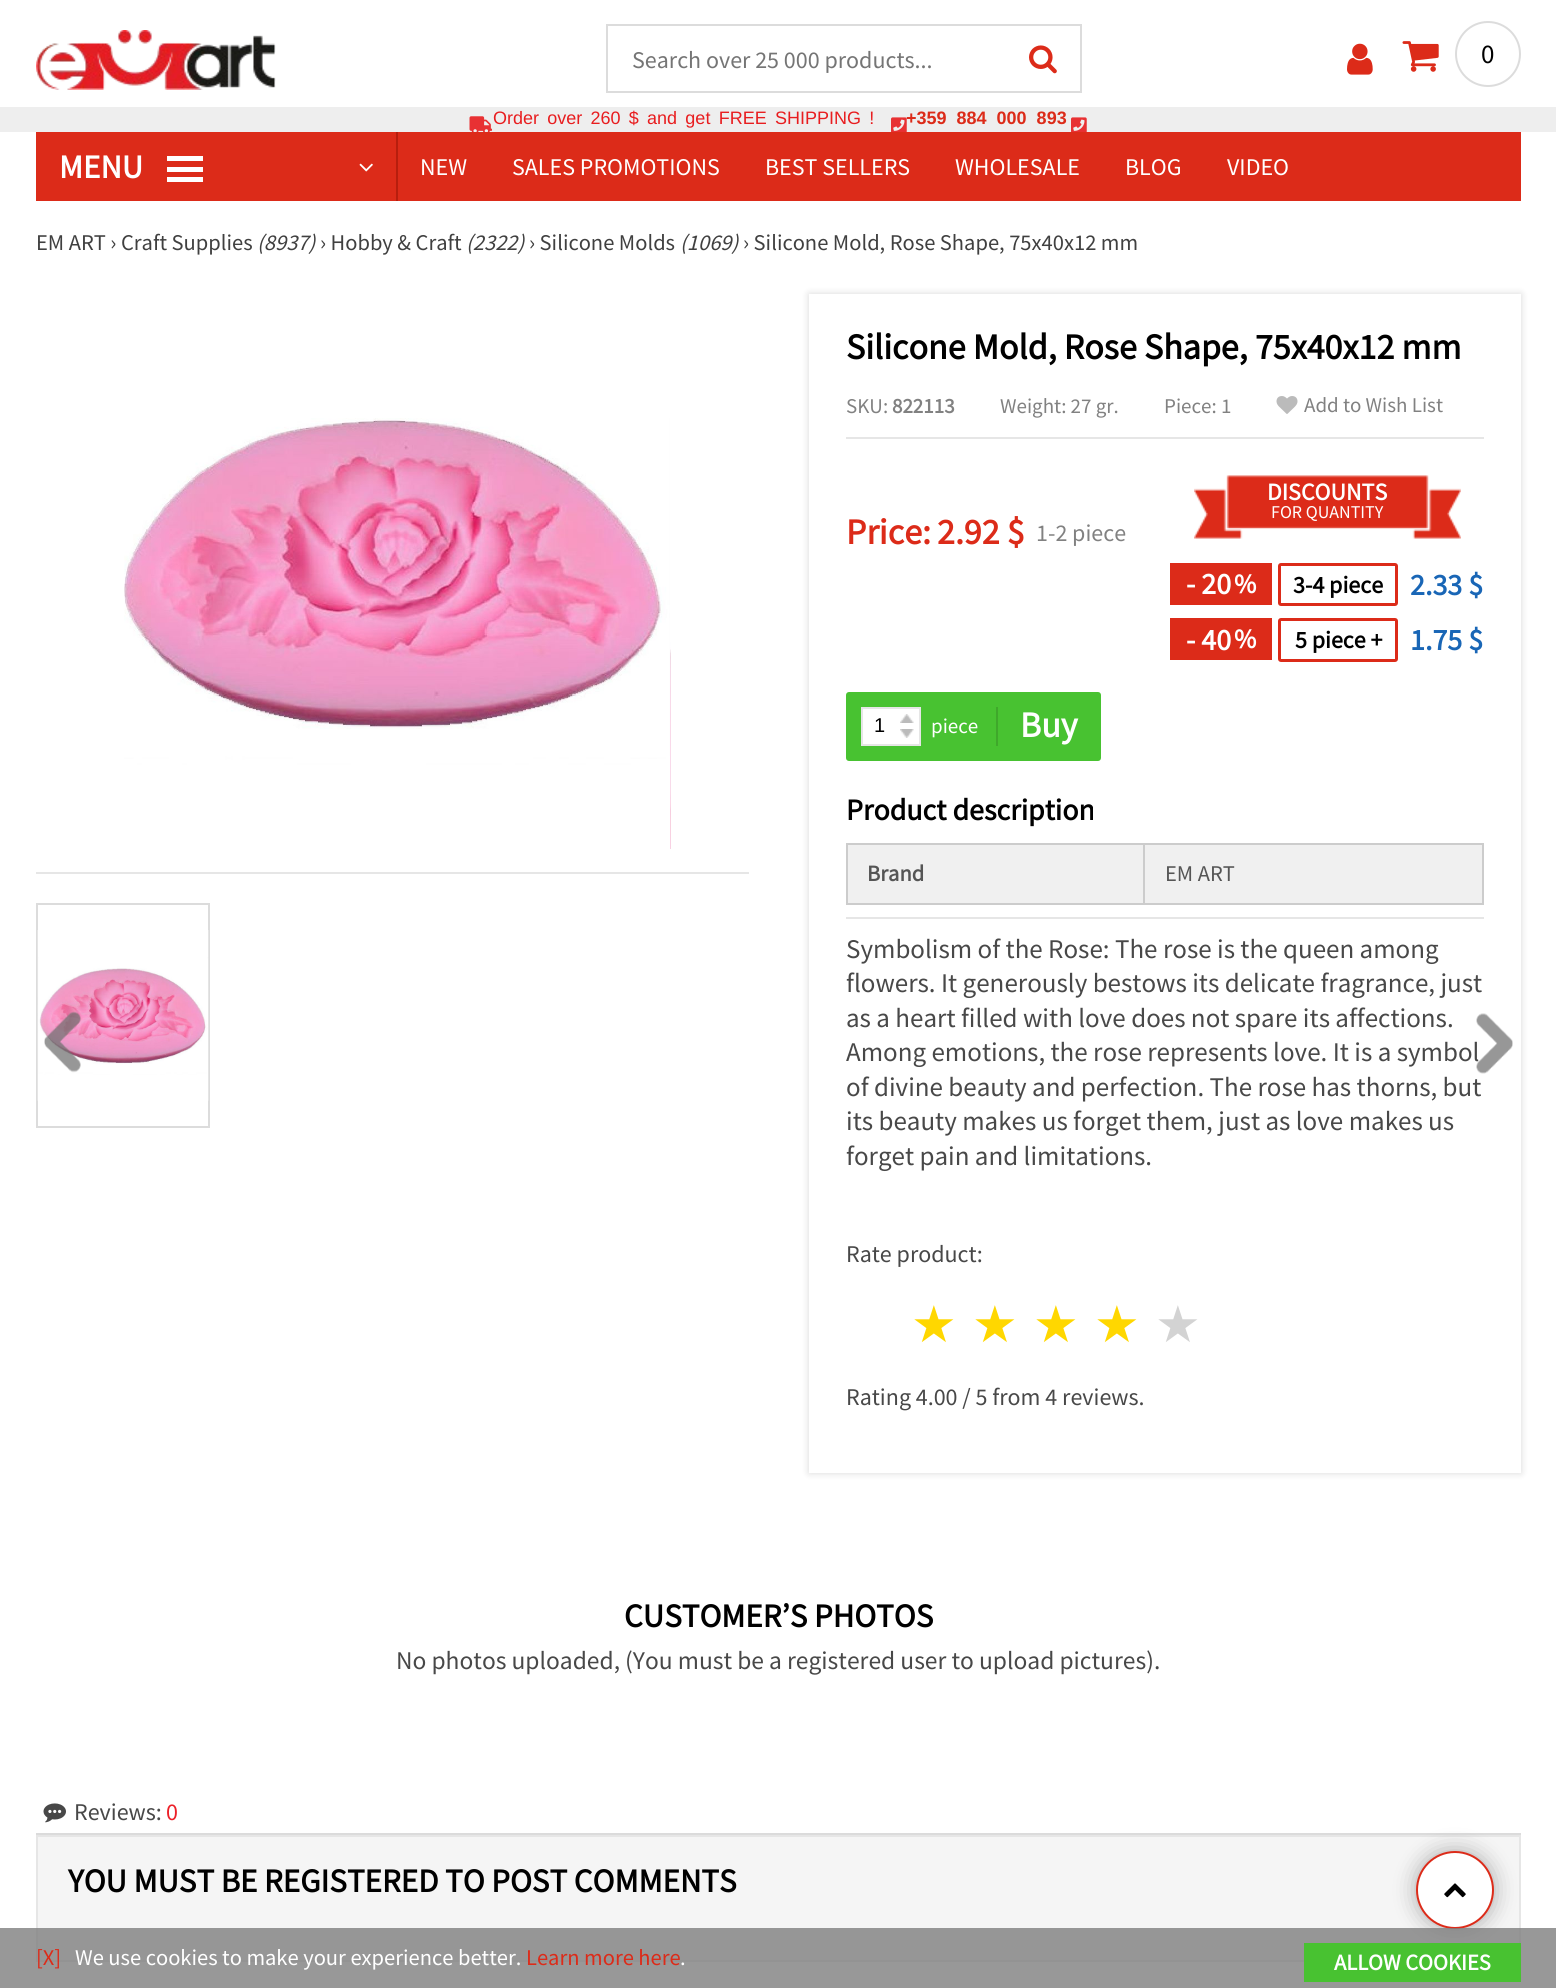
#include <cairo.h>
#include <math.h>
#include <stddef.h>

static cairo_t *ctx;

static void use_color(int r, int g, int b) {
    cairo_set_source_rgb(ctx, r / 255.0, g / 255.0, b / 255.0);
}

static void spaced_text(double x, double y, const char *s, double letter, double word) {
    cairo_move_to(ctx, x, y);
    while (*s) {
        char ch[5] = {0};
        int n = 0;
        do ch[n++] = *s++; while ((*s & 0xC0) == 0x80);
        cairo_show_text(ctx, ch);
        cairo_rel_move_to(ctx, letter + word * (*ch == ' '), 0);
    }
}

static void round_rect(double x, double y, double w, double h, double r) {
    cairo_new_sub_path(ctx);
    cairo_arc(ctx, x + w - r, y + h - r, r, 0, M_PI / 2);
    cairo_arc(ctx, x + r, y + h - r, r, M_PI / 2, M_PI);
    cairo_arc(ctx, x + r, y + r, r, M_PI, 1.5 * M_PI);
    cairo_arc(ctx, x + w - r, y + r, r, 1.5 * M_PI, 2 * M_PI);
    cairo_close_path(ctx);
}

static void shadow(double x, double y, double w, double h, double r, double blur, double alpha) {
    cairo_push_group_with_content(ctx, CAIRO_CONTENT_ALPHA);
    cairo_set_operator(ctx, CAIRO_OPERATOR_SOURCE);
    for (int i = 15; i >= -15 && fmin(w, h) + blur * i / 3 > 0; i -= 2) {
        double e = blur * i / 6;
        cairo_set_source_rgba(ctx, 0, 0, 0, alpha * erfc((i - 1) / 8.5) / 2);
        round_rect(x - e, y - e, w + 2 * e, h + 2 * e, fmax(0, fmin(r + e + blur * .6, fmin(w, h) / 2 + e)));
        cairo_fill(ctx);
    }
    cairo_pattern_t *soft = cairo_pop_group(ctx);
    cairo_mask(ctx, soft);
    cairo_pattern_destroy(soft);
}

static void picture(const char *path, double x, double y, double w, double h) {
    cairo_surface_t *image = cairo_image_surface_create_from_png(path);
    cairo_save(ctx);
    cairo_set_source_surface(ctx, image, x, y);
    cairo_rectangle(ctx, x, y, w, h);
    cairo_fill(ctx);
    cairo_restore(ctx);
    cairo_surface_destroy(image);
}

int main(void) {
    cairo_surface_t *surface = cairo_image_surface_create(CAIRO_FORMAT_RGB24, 1556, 1988);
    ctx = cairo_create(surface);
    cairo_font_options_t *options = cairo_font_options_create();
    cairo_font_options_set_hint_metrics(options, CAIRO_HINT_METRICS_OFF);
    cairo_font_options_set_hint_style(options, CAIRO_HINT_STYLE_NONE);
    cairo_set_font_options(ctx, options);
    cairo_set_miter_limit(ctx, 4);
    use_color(255, 255, 255);
    cairo_paint(ctx);
    picture("img1.png", 36, 30, 240, 60);
    cairo_rectangle(ctx, 607, 25, 474, 67);
    use_color(220, 220, 220);
    cairo_stroke(ctx);
    cairo_select_font_face(ctx, "Source Sans Pro", CAIRO_FONT_SLANT_NORMAL, CAIRO_FONT_WEIGHT_NORMAL);
    cairo_set_font_size(ctx, 24);
    use_color(117, 117, 117);
    cairo_move_to(ctx, 632, 68);
    cairo_show_text(ctx, "Search over 25 000 products...");
    picture("img2.png", 1029, 45, 28, 29);
    picture("img3.png", 1347, 43, 26, 32);
    picture("img4.png", 1402, 41, 37, 31);
    cairo_arc(ctx, 1488, 54, 32, 0, 2 * M_PI);
    use_color(220, 220, 220);
    cairo_stroke(ctx);
    cairo_set_font_size(ctx, 27);
    use_color(0, 0, 0);
    cairo_move_to(ctx, 1481, 63);
    cairo_show_text(ctx, "0");
    use_color(238, 238, 238);
    cairo_rectangle(ctx, 0, 107, 1556, 25);
    cairo_fill(ctx);
    picture("img5.png", 469, 116, 23, 16);
    cairo_select_font_face(ctx, "Liberation Sans", CAIRO_FONT_SLANT_NORMAL, CAIRO_FONT_WEIGHT_NORMAL);
    cairo_set_font_size(ctx, 18);
    use_color(232, 29, 31);
    spaced_text(493, 124, "Order over 260 $ and get FREE SHIPPING !", 0, 3.25);
    picture("img6.png", 891, 117, 16, 15);
    cairo_select_font_face(ctx, "Liberation Sans", CAIRO_FONT_SLANT_NORMAL, CAIRO_FONT_WEIGHT_BOLD);
    use_color(220, 43, 25);
    spaced_text(906, 124, "+359 884 000 893", 0, 5);
    picture("img6.png", 1071, 117, 16, 15);
    cairo_rectangle(ctx, 36, 132, 1485, 69);
    cairo_fill(ctx);
    use_color(183, 30, 14);
    cairo_rectangle(ctx, 396, 132, 2, 69);
    cairo_fill(ctx);
    cairo_select_font_face(ctx, "Source Sans Pro", CAIRO_FONT_SLANT_NORMAL, CAIRO_FONT_WEIGHT_BOLD);
    cairo_set_font_size(ctx, 33);
    use_color(255, 255, 255);
    cairo_move_to(ctx, 59, 178);
    cairo_show_text(ctx, "MENU");
    cairo_rectangle(ctx, 167, 167, 36, 5);
    cairo_fill(ctx);
    cairo_rectangle(ctx, 167, 156, 36, 5);
    cairo_fill(ctx);
    cairo_rectangle(ctx, 167, 177, 36, 5);
    cairo_fill(ctx);
    picture("img7.png", 359, 163, 14, 9);
    cairo_select_font_face(ctx, "Source Sans Pro", CAIRO_FONT_SLANT_NORMAL, CAIRO_FONT_WEIGHT_NORMAL);
    cairo_set_font_size(ctx, 24);
    cairo_move_to(ctx, 420, 175);
    cairo_show_text(ctx, "NEW");
    cairo_move_to(ctx, 512, 175);
    cairo_show_text(ctx, "SALES PROMOTIONS");
    cairo_move_to(ctx, 765, 175);
    cairo_show_text(ctx, "BEST SELLERS");
    cairo_move_to(ctx, 955, 175);
    cairo_show_text(ctx, "WHOLESALE");
    cairo_move_to(ctx, 1125, 175);
    cairo_show_text(ctx, "BLOG");
    cairo_move_to(ctx, 1227, 175);
    cairo_show_text(ctx, "VIDEO");
    cairo_set_font_size(ctx, 22.5);
    use_color(64, 64, 64);
    cairo_move_to(ctx, 36, 250);
    cairo_show_text(ctx, "EM ART › Craft Supplies");
    cairo_select_font_face(ctx, "Source Sans Pro", CAIRO_FONT_SLANT_ITALIC, CAIRO_FONT_WEIGHT_NORMAL);
    cairo_move_to(ctx, 257, 250);
    cairo_show_text(ctx, "(8937)");
    cairo_select_font_face(ctx, "Source Sans Pro", CAIRO_FONT_SLANT_NORMAL, CAIRO_FONT_WEIGHT_NORMAL);
    cairo_move_to(ctx, 320, 250);
    cairo_show_text(ctx, "› Hobby & Craft");
    cairo_select_font_face(ctx, "Source Sans Pro", CAIRO_FONT_SLANT_ITALIC, CAIRO_FONT_WEIGHT_NORMAL);
    cairo_move_to(ctx, 466, 250);
    cairo_show_text(ctx, "(2322)");
    cairo_select_font_face(ctx, "Source Sans Pro", CAIRO_FONT_SLANT_NORMAL, CAIRO_FONT_WEIGHT_NORMAL);
    cairo_move_to(ctx, 529, 250);
    cairo_show_text(ctx, "› Silicone Molds");
    cairo_select_font_face(ctx, "Source Sans Pro", CAIRO_FONT_SLANT_ITALIC, CAIRO_FONT_WEIGHT_NORMAL);
    cairo_move_to(ctx, 680, 250);
    cairo_show_text(ctx, "(1069)");
    cairo_select_font_face(ctx, "Source Sans Pro", CAIRO_FONT_SLANT_NORMAL, CAIRO_FONT_WEIGHT_NORMAL);
    cairo_move_to(ctx, 743, 250);
    cairo_show_text(ctx, "› Silicone Mold, Rose Shape, 75x40x12 mm");
    picture("img8.png", 670, 642, 1, 207);
    picture("img9.png", 124, 418, 547, 431);
    use_color(230, 230, 230);
    cairo_rectangle(ctx, 36, 872, 713, 2);
    cairo_fill(ctx);
    cairo_rectangle(ctx, 37, 904, 172, 223);
    use_color(220, 220, 220);
    cairo_stroke(ctx);
    picture("img10.png", 37, 930, 172, 171);
    cairo_save(ctx);
    cairo_set_fill_rule(ctx, CAIRO_FILL_RULE_EVEN_ODD);
    cairo_new_path(ctx);
    cairo_move_to(ctx, 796, 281);
    cairo_line_to(ctx, 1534, 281);
    cairo_line_to(ctx, 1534, 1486);
    cairo_line_to(ctx, 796, 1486);
    cairo_close_path(ctx);
    cairo_move_to(ctx, 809, 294);
    cairo_line_to(ctx, 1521, 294);
    cairo_line_to(ctx, 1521, 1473);
    cairo_line_to(ctx, 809, 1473);
    cairo_close_path(ctx);
    cairo_clip(ctx);
    use_color(0, 0, 0);
    shadow(809, 294, 712, 1179, 0, 4, 0.15);
    cairo_restore(ctx);
    cairo_select_font_face(ctx, "Source Sans Pro", CAIRO_FONT_SLANT_NORMAL, CAIRO_FONT_WEIGHT_BOLD);
    cairo_set_font_size(ctx, 36);
    use_color(0, 0, 0);
    cairo_move_to(ctx, 846, 359);
    cairo_show_text(ctx, "Silicone Mold, Rose Shape, 75x40x12 mm");
    use_color(230, 230, 230);
    cairo_rectangle(ctx, 846, 437, 638, 2);
    cairo_fill(ctx);
    cairo_select_font_face(ctx, "Source Sans Pro", CAIRO_FONT_SLANT_NORMAL, CAIRO_FONT_WEIGHT_NORMAL);
    cairo_set_font_size(ctx, 21);
    use_color(129, 129, 129);
    cairo_move_to(ctx, 846, 413);
    cairo_show_text(ctx, "SKU:");
    cairo_select_font_face(ctx, "Source Sans Pro", CAIRO_FONT_SLANT_NORMAL, CAIRO_FONT_WEIGHT_BOLD);
    cairo_move_to(ctx, 892, 413);
    cairo_show_text(ctx, "822113");
    cairo_select_font_face(ctx, "Source Sans Pro", CAIRO_FONT_SLANT_NORMAL, CAIRO_FONT_WEIGHT_NORMAL);
    cairo_move_to(ctx, 1000, 413);
    cairo_show_text(ctx, "Weight: 27 gr.");
    cairo_move_to(ctx, 1164, 413);
    cairo_show_text(ctx, "Piece: 1");
    picture("img11.png", 1276, 396, 22, 18);
    cairo_move_to(ctx, 1304, 412);
    cairo_show_text(ctx, "Add to Wish List");
    cairo_select_font_face(ctx, "Source Sans Pro", CAIRO_FONT_SLANT_NORMAL, CAIRO_FONT_WEIGHT_BOLD);
    cairo_set_font_size(ctx, 36);
    use_color(220, 43, 25);
    cairo_move_to(ctx, 846, 544);
    cairo_show_text(ctx, "Price:");
    cairo_move_to(ctx, 937, 544);
    cairo_show_text(ctx, "2.92 $");
    cairo_select_font_face(ctx, "Source Sans Pro", CAIRO_FONT_SLANT_NORMAL, CAIRO_FONT_WEIGHT_NORMAL);
    cairo_set_font_size(ctx, 24);
    use_color(129, 129, 129);
    cairo_move_to(ctx, 1036, 541);
    cairo_show_text(ctx, "1-2 piece");
    picture("img12.png", 1194, 475, 267, 64);
    cairo_select_font_face(ctx, "Source Sans Pro", CAIRO_FONT_SLANT_NORMAL, CAIRO_FONT_WEIGHT_BOLD);
    use_color(255, 255, 255);
    cairo_move_to(ctx, 1267, 500);
    cairo_show_text(ctx, "DISCOUNTS");
    cairo_select_font_face(ctx, "Source Sans Pro", CAIRO_FONT_SLANT_NORMAL, CAIRO_FONT_WEIGHT_NORMAL);
    cairo_set_font_size(ctx, 18);
    cairo_move_to(ctx, 1271, 518);
    cairo_show_text(ctx, "FOR QUANTITY");
    use_color(220, 43, 25);
    cairo_rectangle(ctx, 1170, 563, 102, 42);
    cairo_fill(ctx);
    cairo_select_font_face(ctx, "Source Sans Pro", CAIRO_FONT_SLANT_NORMAL, CAIRO_FONT_WEIGHT_BOLD);
    cairo_set_font_size(ctx, 30);
    use_color(255, 255, 255);
    cairo_move_to(ctx, 1186, 594);
    cairo_show_text(ctx, "- 20");
    cairo_set_font_size(ctx, 27);
    cairo_move_to(ctx, 1234, 593);
    cairo_show_text(ctx, "%");
    round_rect(1279.5, 564.5, 117, 40, 1.5);
    use_color(220, 43, 25);
    cairo_set_line_width(ctx, 3);
    cairo_stroke(ctx);
    cairo_set_font_size(ctx, 24);
    use_color(0, 0, 0);
    cairo_move_to(ctx, 1293, 593);
    cairo_show_text(ctx, "3-4 piece");
    cairo_set_font_size(ctx, 30);
    use_color(25, 102, 182);
    cairo_move_to(ctx, 1410, 595);
    cairo_show_text(ctx, "2.33 $");
    use_color(220, 43, 25);
    cairo_rectangle(ctx, 1170, 618, 102, 42);
    cairo_fill(ctx);
    use_color(255, 255, 255);
    cairo_move_to(ctx, 1186, 650);
    cairo_show_text(ctx, "- 40");
    cairo_set_font_size(ctx, 27);
    cairo_move_to(ctx, 1234, 648);
    cairo_show_text(ctx, "%");
    round_rect(1279.5, 619.5, 117, 41, 1.5);
    use_color(220, 43, 25);
    cairo_stroke(ctx);
    cairo_set_font_size(ctx, 24);
    use_color(0, 0, 0);
    cairo_move_to(ctx, 1295, 648);
    cairo_show_text(ctx, "5 piece +");
    cairo_set_font_size(ctx, 30);
    use_color(25, 102, 182);
    cairo_move_to(ctx, 1410, 650);
    cairo_show_text(ctx, "1.75 $");
    use_color(72, 194, 49);
    round_rect(846, 692, 255, 69, 3);
    cairo_fill(ctx);
    use_color(255, 255, 255);
    cairo_rectangle(ctx, 862, 708, 58, 37);
    cairo_fill_preserve(ctx);
    use_color(230, 230, 230);
    cairo_set_line_width(ctx, 2);
    cairo_stroke(ctx);
    cairo_select_font_face(ctx, "Liberation Sans", CAIRO_FONT_SLANT_NORMAL, CAIRO_FONT_WEIGHT_NORMAL);
    cairo_set_font_size(ctx, 20);
    use_color(0, 0, 0);
    cairo_move_to(ctx, 874, 732);
    cairo_show_text(ctx, "1");
    picture("img13.png", 900, 714, 14, 9);
    cairo_select_font_face(ctx, "Source Sans Pro", CAIRO_FONT_SLANT_NORMAL, CAIRO_FONT_WEIGHT_NORMAL);
    cairo_set_font_size(ctx, 21);
    use_color(255, 255, 255);
    cairo_move_to(ctx, 931, 733);
    cairo_show_text(ctx, "piece");
    picture("img14.png", 900, 729, 14, 9);
    use_color(63, 168, 43);
    cairo_rectangle(ctx, 996, 707, 2, 39);
    cairo_fill(ctx);
    cairo_select_font_face(ctx, "Source Sans Pro", CAIRO_FONT_SLANT_NORMAL, CAIRO_FONT_WEIGHT_BOLD);
    cairo_set_font_size(ctx, 36);
    use_color(255, 255, 255);
    cairo_move_to(ctx, 1020, 737);
    cairo_show_text(ctx, "Buy");
    cairo_set_font_size(ctx, 30);
    use_color(0, 0, 0);
    cairo_move_to(ctx, 846, 820);
    cairo_show_text(ctx, "Product description");
    use_color(240, 240, 240);
    cairo_rectangle(ctx, 848, 845, 295, 58);
    cairo_fill(ctx);
    use_color(204, 204, 204);
    cairo_rectangle(ctx, 1143, 843, 341, 2);
    cairo_fill(ctx);
    cairo_rectangle(ctx, 1482, 843, 2, 62);
    cairo_fill(ctx);
    cairo_rectangle(ctx, 1143, 903, 341, 2);
    cairo_fill(ctx);
    cairo_rectangle(ctx, 1143, 843, 2, 62);
    cairo_fill(ctx);
    cairo_rectangle(ctx, 846, 843, 299, 2);
    cairo_fill(ctx);
    cairo_rectangle(ctx, 846, 903, 299, 2);
    cairo_fill(ctx);
    cairo_rectangle(ctx, 846, 843, 2, 62);
    cairo_fill(ctx);
    cairo_set_font_size(ctx, 22.5);
    use_color(85, 85, 85);
    cairo_move_to(ctx, 867, 881);
    cairo_show_text(ctx, "Brand");
    use_color(240, 240, 240);
    cairo_rectangle(ctx, 1145, 845, 337, 58);
    cairo_fill(ctx);
    cairo_select_font_face(ctx, "Source Sans Pro", CAIRO_FONT_SLANT_NORMAL, CAIRO_FONT_WEIGHT_NORMAL);
    use_color(85, 85, 85);
    cairo_move_to(ctx, 1165, 881);
    cairo_show_text(ctx, "EM ART");
    use_color(230, 230, 230);
    cairo_rectangle(ctx, 846, 917, 638, 2);
    cairo_fill(ctx);
    cairo_set_font_size(ctx, 27);
    use_color(72, 72, 72);
    cairo_move_to(ctx, 846, 958);
    cairo_show_text(ctx, "Symbolism of the Rose: The rose is the queen among");
    cairo_move_to(ctx, 846, 992);
    cairo_show_text(ctx, "flowers. It generously bestows its delicate fragrance, just");
    cairo_move_to(ctx, 846, 1027);
    cairo_show_text(ctx, "as a heart filled with love does not spare its affections.");
    cairo_move_to(ctx, 846, 1061);
    cairo_show_text(ctx, "Among emotions, the rose represents love. It is a symbol");
    cairo_move_to(ctx, 846, 1096);
    cairo_show_text(ctx, "of divine beauty and perfection. The rose has thorns, but");
    cairo_move_to(ctx, 846, 1130);
    cairo_show_text(ctx, "its beauty makes us forget them, just as love makes us");
    cairo_move_to(ctx, 846, 1165);
    cairo_show_text(ctx, "forget pain and limitations.");
    cairo_set_font_size(ctx, 24);
    cairo_move_to(ctx, 846, 1262);
    cairo_show_text(ctx, "Rate product:");
    cairo_select_font_face(ctx, "DejaVu Sans", CAIRO_FONT_SLANT_NORMAL, CAIRO_FONT_WEIGHT_NORMAL);
    cairo_set_font_size(ctx, 51);
    use_color(255, 215, 0);
    cairo_move_to(ctx, 911, 1342);
    cairo_show_text(ctx, "★");
    cairo_move_to(ctx, 972, 1342);
    cairo_show_text(ctx, "★");
    cairo_move_to(ctx, 1033, 1342);
    cairo_show_text(ctx, "★");
    cairo_move_to(ctx, 1094, 1342);
    cairo_show_text(ctx, "★");
    use_color(211, 211, 211);
    cairo_move_to(ctx, 1155, 1342);
    cairo_show_text(ctx, "★");
    cairo_select_font_face(ctx, "Source Sans Pro", CAIRO_FONT_SLANT_NORMAL, CAIRO_FONT_WEIGHT_NORMAL);
    cairo_set_font_size(ctx, 24);
    use_color(72, 72, 72);
    cairo_move_to(ctx, 846, 1405);
    cairo_show_text(ctx, "Rating 4.00 / 5 from 4 reviews.");
    cairo_select_font_face(ctx, "Source Sans Pro", CAIRO_FONT_SLANT_NORMAL, CAIRO_FONT_WEIGHT_BOLD);
    cairo_set_font_size(ctx, 33);
    use_color(0, 0, 0);
    cairo_move_to(ctx, 624, 1627);
    cairo_show_text(ctx, "CUSTOMER’S PHOTOS");
    cairo_select_font_face(ctx, "Source Sans Pro", CAIRO_FONT_SLANT_NORMAL, CAIRO_FONT_WEIGHT_NORMAL);
    cairo_set_font_size(ctx, 25.5);
    use_color(72, 72, 72);
    cairo_move_to(ctx, 396, 1669);
    cairo_show_text(ctx, "No photos uploaded, (You must be a registered user to upload pictures).");
    use_color(219, 219, 219);
    cairo_rectangle(ctx, 36, 1833, 1485, 2);
    cairo_fill(ctx);
    picture("img15.png", 43, 1803, 23, 20);
    cairo_set_font_size(ctx, 24);
    use_color(72, 72, 72);
    cairo_move_to(ctx, 74, 1820);
    cairo_show_text(ctx, "Reviews:");
    use_color(236, 32, 40);
    cairo_move_to(ctx, 166, 1820);
    cairo_show_text(ctx, "0");
    use_color(245, 245, 245);
    cairo_rectangle(ctx, 37, 1836, 1483, 125);
    cairo_fill_preserve(ctx);
    use_color(230, 230, 230);
    cairo_stroke(ctx);
    cairo_select_font_face(ctx, "Source Sans Pro", CAIRO_FONT_SLANT_NORMAL, CAIRO_FONT_WEIGHT_BOLD);
    cairo_set_font_size(ctx, 33);
    use_color(0, 0, 0);
    cairo_move_to(ctx, 68, 1892);
    cairo_show_text(ctx, "YOU MUST BE REGISTERED TO POST COMMENTS");
    picture("img16.png", 44, 1011, 37, 62);
    picture("img17.png", 1476, 1013, 37, 61);
    use_color(0, 0, 0);
    shadow(1416, 1851, 78, 78, 39, 11, 0.3);
    use_color(255, 255, 255);
    cairo_arc(ctx, 1455, 1890, 38, 0, 2 * M_PI);
    cairo_fill_preserve(ctx);
    use_color(220, 43, 25);
    cairo_stroke(ctx);
    picture("img18.png", 1444, 1883, 22, 15);
    cairo_set_source_rgba(ctx, 0.498, 0.498, 0.498, 0.8);
    cairo_rectangle(ctx, 0, 1928, 1556, 60);
    cairo_fill(ctx);
    cairo_select_font_face(ctx, "Source Sans Pro", CAIRO_FONT_SLANT_NORMAL, CAIRO_FONT_WEIGHT_NORMAL);
    cairo_set_font_size(ctx, 22.5);
    use_color(220, 43, 25);
    cairo_move_to(ctx, 36, 1965);
    cairo_show_text(ctx, "[X]");
    use_color(255, 255, 255);
    cairo_move_to(ctx, 75, 1965);
    cairo_show_text(ctx, "We use cookies to make your experience better.");
    use_color(220, 43, 25);
    cairo_move_to(ctx, 526, 1965);
    cairo_show_text(ctx, "Learn more here");
    use_color(255, 255, 255);
    cairo_move_to(ctx, 680, 1965);
    cairo_show_text(ctx, ".");
    use_color(72, 194, 49);
    cairo_rectangle(ctx, 1304, 1943, 217, 39);
    cairo_fill(ctx);
    cairo_select_font_face(ctx, "Source Sans Pro", CAIRO_FONT_SLANT_NORMAL, CAIRO_FONT_WEIGHT_BOLD);
    use_color(255, 255, 255);
    cairo_move_to(ctx, 1334, 1970);
    cairo_show_text(ctx, "ALLOW COOKIES");
    cairo_surface_write_to_png(surface, "result.png");
    cairo_font_options_destroy(options);
    cairo_destroy(ctx);
    cairo_surface_destroy(surface);
    return 0;
}
